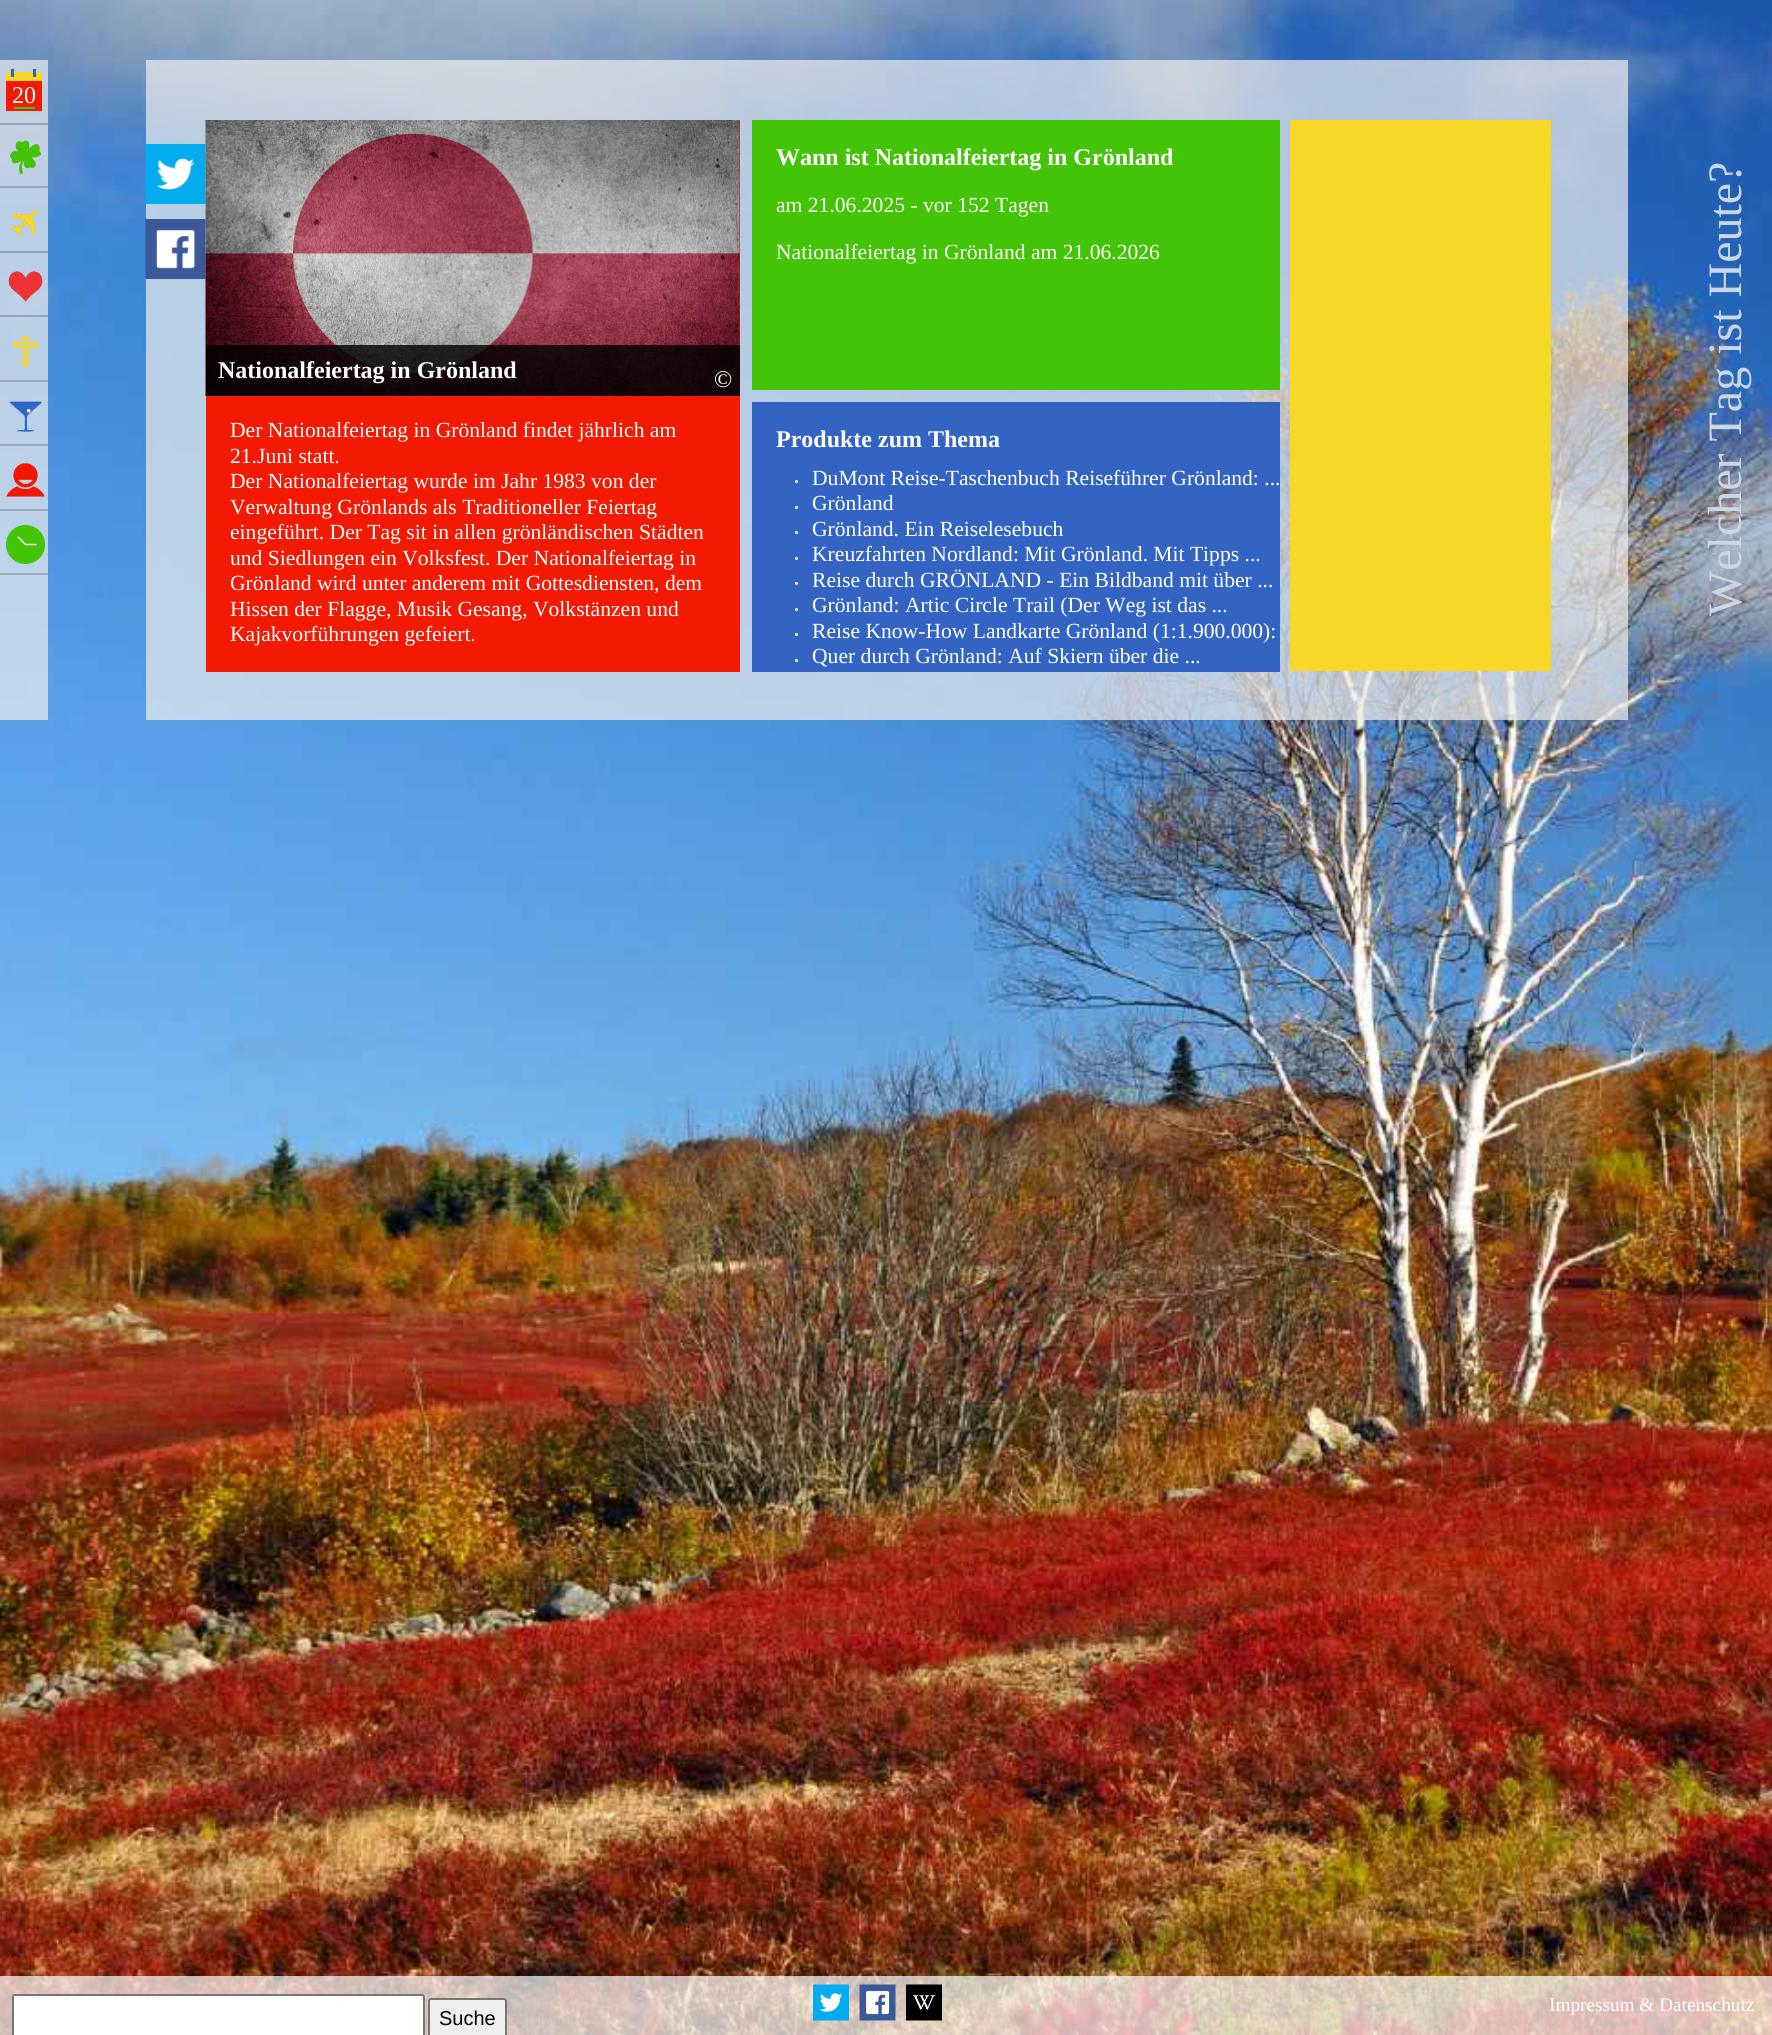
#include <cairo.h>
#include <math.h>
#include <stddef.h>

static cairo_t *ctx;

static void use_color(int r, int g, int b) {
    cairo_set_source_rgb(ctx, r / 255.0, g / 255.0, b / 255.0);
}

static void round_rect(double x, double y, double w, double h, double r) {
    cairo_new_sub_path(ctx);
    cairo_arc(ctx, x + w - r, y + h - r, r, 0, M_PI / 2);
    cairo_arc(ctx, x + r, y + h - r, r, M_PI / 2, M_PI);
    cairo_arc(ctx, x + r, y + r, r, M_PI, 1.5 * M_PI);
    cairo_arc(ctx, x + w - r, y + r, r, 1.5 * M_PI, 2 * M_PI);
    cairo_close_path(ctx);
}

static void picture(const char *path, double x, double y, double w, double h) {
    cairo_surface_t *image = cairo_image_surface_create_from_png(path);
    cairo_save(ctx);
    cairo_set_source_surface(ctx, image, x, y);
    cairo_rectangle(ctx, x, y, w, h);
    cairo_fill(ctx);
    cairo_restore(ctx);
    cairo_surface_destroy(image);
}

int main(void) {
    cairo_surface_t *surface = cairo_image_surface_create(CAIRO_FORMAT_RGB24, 1772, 2035);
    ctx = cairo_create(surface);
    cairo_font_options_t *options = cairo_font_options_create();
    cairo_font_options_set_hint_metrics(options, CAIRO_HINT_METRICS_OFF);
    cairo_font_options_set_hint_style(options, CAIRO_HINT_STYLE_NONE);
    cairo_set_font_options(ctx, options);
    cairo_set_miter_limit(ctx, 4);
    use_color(255, 255, 255);
    cairo_paint(ctx);
    picture("img1.png", 0, 0, 1772, 2035);
    cairo_set_source_rgba(ctx, 0.929, 0.929, 0.929, 0.7);
    cairo_rectangle(ctx, 0, 60, 48, 660);
    cairo_fill(ctx);
    use_color(247, 215, 39);
    cairo_rectangle(ctx, 6, 72, 36, 9);
    cairo_fill(ctx);
    use_color(51, 100, 195);
    cairo_rectangle(ctx, 11, 69, 3, 8);
    cairo_fill(ctx);
    cairo_rectangle(ctx, 33, 69, 3, 8);
    cairo_fill(ctx);
    use_color(243, 25, 3);
    cairo_rectangle(ctx, 6, 81, 36, 30);
    cairo_fill(ctx);
    cairo_select_font_face(ctx, "Liberation Serif", CAIRO_FONT_SLANT_NORMAL, CAIRO_FONT_WEIGHT_NORMAL);
    cairo_set_font_size(ctx, 24);
    use_color(255, 255, 255);
    cairo_move_to(ctx, 12, 103);
    cairo_show_text(ctx, "20");
    use_color(68, 196, 6);
    cairo_rectangle(ctx, 14, 107, 21, 2);
    cairo_fill(ctx);
    cairo_set_source_rgba(ctx, 0, 0, 0, 0.2);
    cairo_rectangle(ctx, 0, 123, 48, 2);
    cairo_fill(ctx);
    use_color(151, 166, 183);
    cairo_rectangle(ctx, 0, 186, 48, 2);
    cairo_fill(ctx);
    picture("img2.png", 10, 140, 31, 35);
    use_color(148, 166, 185);
    cairo_rectangle(ctx, 0, 251, 48, 2);
    cairo_fill(ctx);
    picture("img3.png", 10, 208, 29, 29);
    use_color(150, 166, 185);
    cairo_rectangle(ctx, 0, 315, 48, 2);
    cairo_fill(ctx);
    picture("img4.png", 8, 271, 35, 31);
    use_color(149, 167, 185);
    cairo_rectangle(ctx, 0, 380, 48, 2);
    cairo_fill(ctx);
    picture("img5.png", 13, 335, 25, 32);
    use_color(150, 167, 186);
    cairo_rectangle(ctx, 0, 444, 48, 2);
    cairo_fill(ctx);
    picture("img6.png", 9, 401, 33, 31);
    use_color(151, 168, 187);
    cairo_rectangle(ctx, 0, 509, 48, 2);
    cairo_fill(ctx);
    picture("img7.png", 6, 463, 39, 34);
    use_color(152, 169, 187);
    cairo_rectangle(ctx, 0, 573, 48, 2);
    cairo_fill(ctx);
    picture("img8.png", 6, 525, 39, 39);
    cairo_set_source_rgba(ctx, 0.929, 0.929, 0.929, 0.7);
    cairo_rectangle(ctx, 146, 60, 1482, 660);
    cairo_fill(ctx);
    picture("img9.png", 145, 144, 61, 60);
    picture("img10.png", 145, 219, 61, 60);
    use_color(243, 25, 3);
    cairo_rectangle(ctx, 206, 120, 534, 552);
    cairo_fill(ctx);
    picture("img11.png", 205, 120, 535, 276);
    cairo_set_source_rgba(ctx, 0, 0, 0, 0.8);
    cairo_rectangle(ctx, 206, 345, 534, 51);
    cairo_fill(ctx);
    cairo_select_font_face(ctx, "Liberation Serif", CAIRO_FONT_SLANT_NORMAL, CAIRO_FONT_WEIGHT_BOLD);
    use_color(255, 255, 255);
    cairo_move_to(ctx, 218, 378);
    cairo_show_text(ctx, "Nationalfeiertag in Grönland");
    cairo_select_font_face(ctx, "Liberation Serif", CAIRO_FONT_SLANT_NORMAL, CAIRO_FONT_WEIGHT_NORMAL);
    cairo_move_to(ctx, 714, 387);
    cairo_show_text(ctx, "©");
    cairo_set_font_size(ctx, 21.6);
    cairo_move_to(ctx, 230, 437);
    cairo_show_text(ctx, "Der Nationalfeiertag in Grönland findet jährlich am");
    cairo_move_to(ctx, 230, 463);
    cairo_show_text(ctx, "21.Juni statt.");
    cairo_move_to(ctx, 230, 488);
    cairo_show_text(ctx, "Der Nationalfeiertag wurde im Jahr 1983 von der");
    cairo_move_to(ctx, 230, 514);
    cairo_show_text(ctx, "Verwaltung Grönlands als Traditioneller Feiertag");
    cairo_move_to(ctx, 230, 539);
    cairo_show_text(ctx, "eingeführt. Der Tag sit in allen grönländischen Städten");
    cairo_move_to(ctx, 230, 565);
    cairo_show_text(ctx, "und Siedlungen ein Volksfest. Der Nationalfeiertag in");
    cairo_move_to(ctx, 230, 590);
    cairo_show_text(ctx, "Grönland wird unter anderem mit Gottesdiensten, dem");
    cairo_move_to(ctx, 230, 616);
    cairo_show_text(ctx, "Hissen der Flagge, Musik Gesang, Volkstänzen und");
    cairo_move_to(ctx, 230, 641);
    cairo_show_text(ctx, "Kajakvorführungen gefeiert.");
    use_color(68, 196, 6);
    cairo_rectangle(ctx, 752, 120, 528, 270);
    cairo_fill(ctx);
    cairo_select_font_face(ctx, "Liberation Serif", CAIRO_FONT_SLANT_NORMAL, CAIRO_FONT_WEIGHT_BOLD);
    cairo_set_font_size(ctx, 24);
    use_color(255, 255, 255);
    cairo_move_to(ctx, 776, 165);
    cairo_show_text(ctx, "Wann ist Nationalfeiertag in Grönland");
    cairo_select_font_face(ctx, "Liberation Serif", CAIRO_FONT_SLANT_NORMAL, CAIRO_FONT_WEIGHT_NORMAL);
    cairo_set_font_size(ctx, 21.6);
    cairo_move_to(ctx, 776, 212);
    cairo_show_text(ctx, "am 21.06.2025 - vor 152 Tagen");
    cairo_move_to(ctx, 776, 259);
    cairo_show_text(ctx, "Nationalfeiertag in Grönland am 21.06.2026");
    use_color(51, 100, 195);
    cairo_rectangle(ctx, 752, 402, 528, 270);
    cairo_fill(ctx);
    cairo_select_font_face(ctx, "Liberation Serif", CAIRO_FONT_SLANT_NORMAL, CAIRO_FONT_WEIGHT_BOLD);
    cairo_set_font_size(ctx, 24);
    use_color(255, 255, 255);
    cairo_move_to(ctx, 776, 447);
    cairo_show_text(ctx, "Produkte zum Thema");
    cairo_new_path(ctx);
    cairo_arc(ctx, 796.5, 481.5, 1.5, 0, 2 * M_PI);
    cairo_fill(ctx);
    cairo_select_font_face(ctx, "Liberation Serif", CAIRO_FONT_SLANT_NORMAL, CAIRO_FONT_WEIGHT_NORMAL);
    cairo_set_font_size(ctx, 21.6);
    cairo_move_to(ctx, 812, 485);
    cairo_show_text(ctx, "DuMont Reise-Taschenbuch Reiseführer Grönland: ...");
    cairo_new_path(ctx);
    cairo_arc(ctx, 796.5, 507.5, 1.5, 0, 2 * M_PI);
    cairo_fill(ctx);
    cairo_move_to(ctx, 812, 510);
    cairo_show_text(ctx, "Grönland");
    cairo_new_path(ctx);
    cairo_arc(ctx, 796.5, 532.5, 1.5, 0, 2 * M_PI);
    cairo_fill(ctx);
    cairo_move_to(ctx, 812, 536);
    cairo_show_text(ctx, "Grönland. Ein Reiselesebuch");
    cairo_new_path(ctx);
    cairo_arc(ctx, 796.5, 558.5, 1.5, 0, 2 * M_PI);
    cairo_fill(ctx);
    cairo_move_to(ctx, 812, 561);
    cairo_show_text(ctx, "Kreuzfahrten Nordland: Mit Grönland. Mit Tipps ...");
    cairo_new_path(ctx);
    cairo_arc(ctx, 796.5, 583.5, 1.5, 0, 2 * M_PI);
    cairo_fill(ctx);
    cairo_move_to(ctx, 812, 587);
    cairo_show_text(ctx, "Reise durch GRÖNLAND - Ein Bildband mit über ...");
    cairo_new_path(ctx);
    cairo_arc(ctx, 796.5, 609.5, 1.5, 0, 2 * M_PI);
    cairo_fill(ctx);
    cairo_move_to(ctx, 812, 612);
    cairo_show_text(ctx, "Grönland: Artic Circle Trail (Der Weg ist das ...");
    cairo_new_path(ctx);
    cairo_arc(ctx, 796.5, 634.5, 1.5, 0, 2 * M_PI);
    cairo_fill(ctx);
    cairo_move_to(ctx, 812, 638);
    cairo_show_text(ctx, "Reise Know-How Landkarte Grönland (1:1.900.000):");
    cairo_new_path(ctx);
    cairo_arc(ctx, 796.5, 660.5, 1.5, 0, 2 * M_PI);
    cairo_fill(ctx);
    cairo_move_to(ctx, 812, 663);
    cairo_show_text(ctx, "Quer durch Grönland: Auf Skiern über die ...");
    use_color(247, 215, 39);
    cairo_rectangle(ctx, 1290, 120, 261, 551);
    cairo_fill(ctx);
    cairo_set_font_size(ctx, 48);
    use_color(203, 215, 231);
    cairo_save(ctx);
    cairo_translate(ctx, 1741, 616);
    cairo_rotate(ctx, -90 * M_PI / 180);
    cairo_move_to(ctx, 0, 0);
    cairo_show_text(ctx, "Welcher Tag ist Heute?");
    cairo_restore(ctx);
    cairo_set_source_rgba(ctx, 1, 1, 1, 0.7);
    cairo_rectangle(ctx, 0, 1976, 1772, 59);
    cairo_fill(ctx);
    picture("img12.png", 813, 1984, 36, 37);
    picture("img13.png", 859, 1984, 37, 37);
    picture("img14.png", 906, 1984, 36, 37);
    cairo_set_font_size(ctx, 19.25);
    use_color(255, 255, 255);
    cairo_move_to(ctx, 1549, 2011);
    cairo_show_text(ctx, "Impressum & Datenschutz");
    round_rect(13, 1995, 411, 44, 2);
    cairo_fill_preserve(ctx);
    use_color(118, 118, 118);
    cairo_stroke(ctx);
    use_color(239, 239, 239);
    round_rect(429, 1999, 77, 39, 2);
    cairo_fill_preserve(ctx);
    use_color(118, 118, 118);
    cairo_stroke(ctx);
    cairo_select_font_face(ctx, "Liberation Sans", CAIRO_FONT_SLANT_NORMAL, CAIRO_FONT_WEIGHT_NORMAL);
    cairo_set_font_size(ctx, 20);
    use_color(0, 0, 0);
    cairo_move_to(ctx, 439, 2025);
    cairo_show_text(ctx, "Suche");
    cairo_surface_write_to_png(surface, "result.png");
    cairo_font_options_destroy(options);
    cairo_destroy(ctx);
    cairo_surface_destroy(surface);
    return 0;
}
